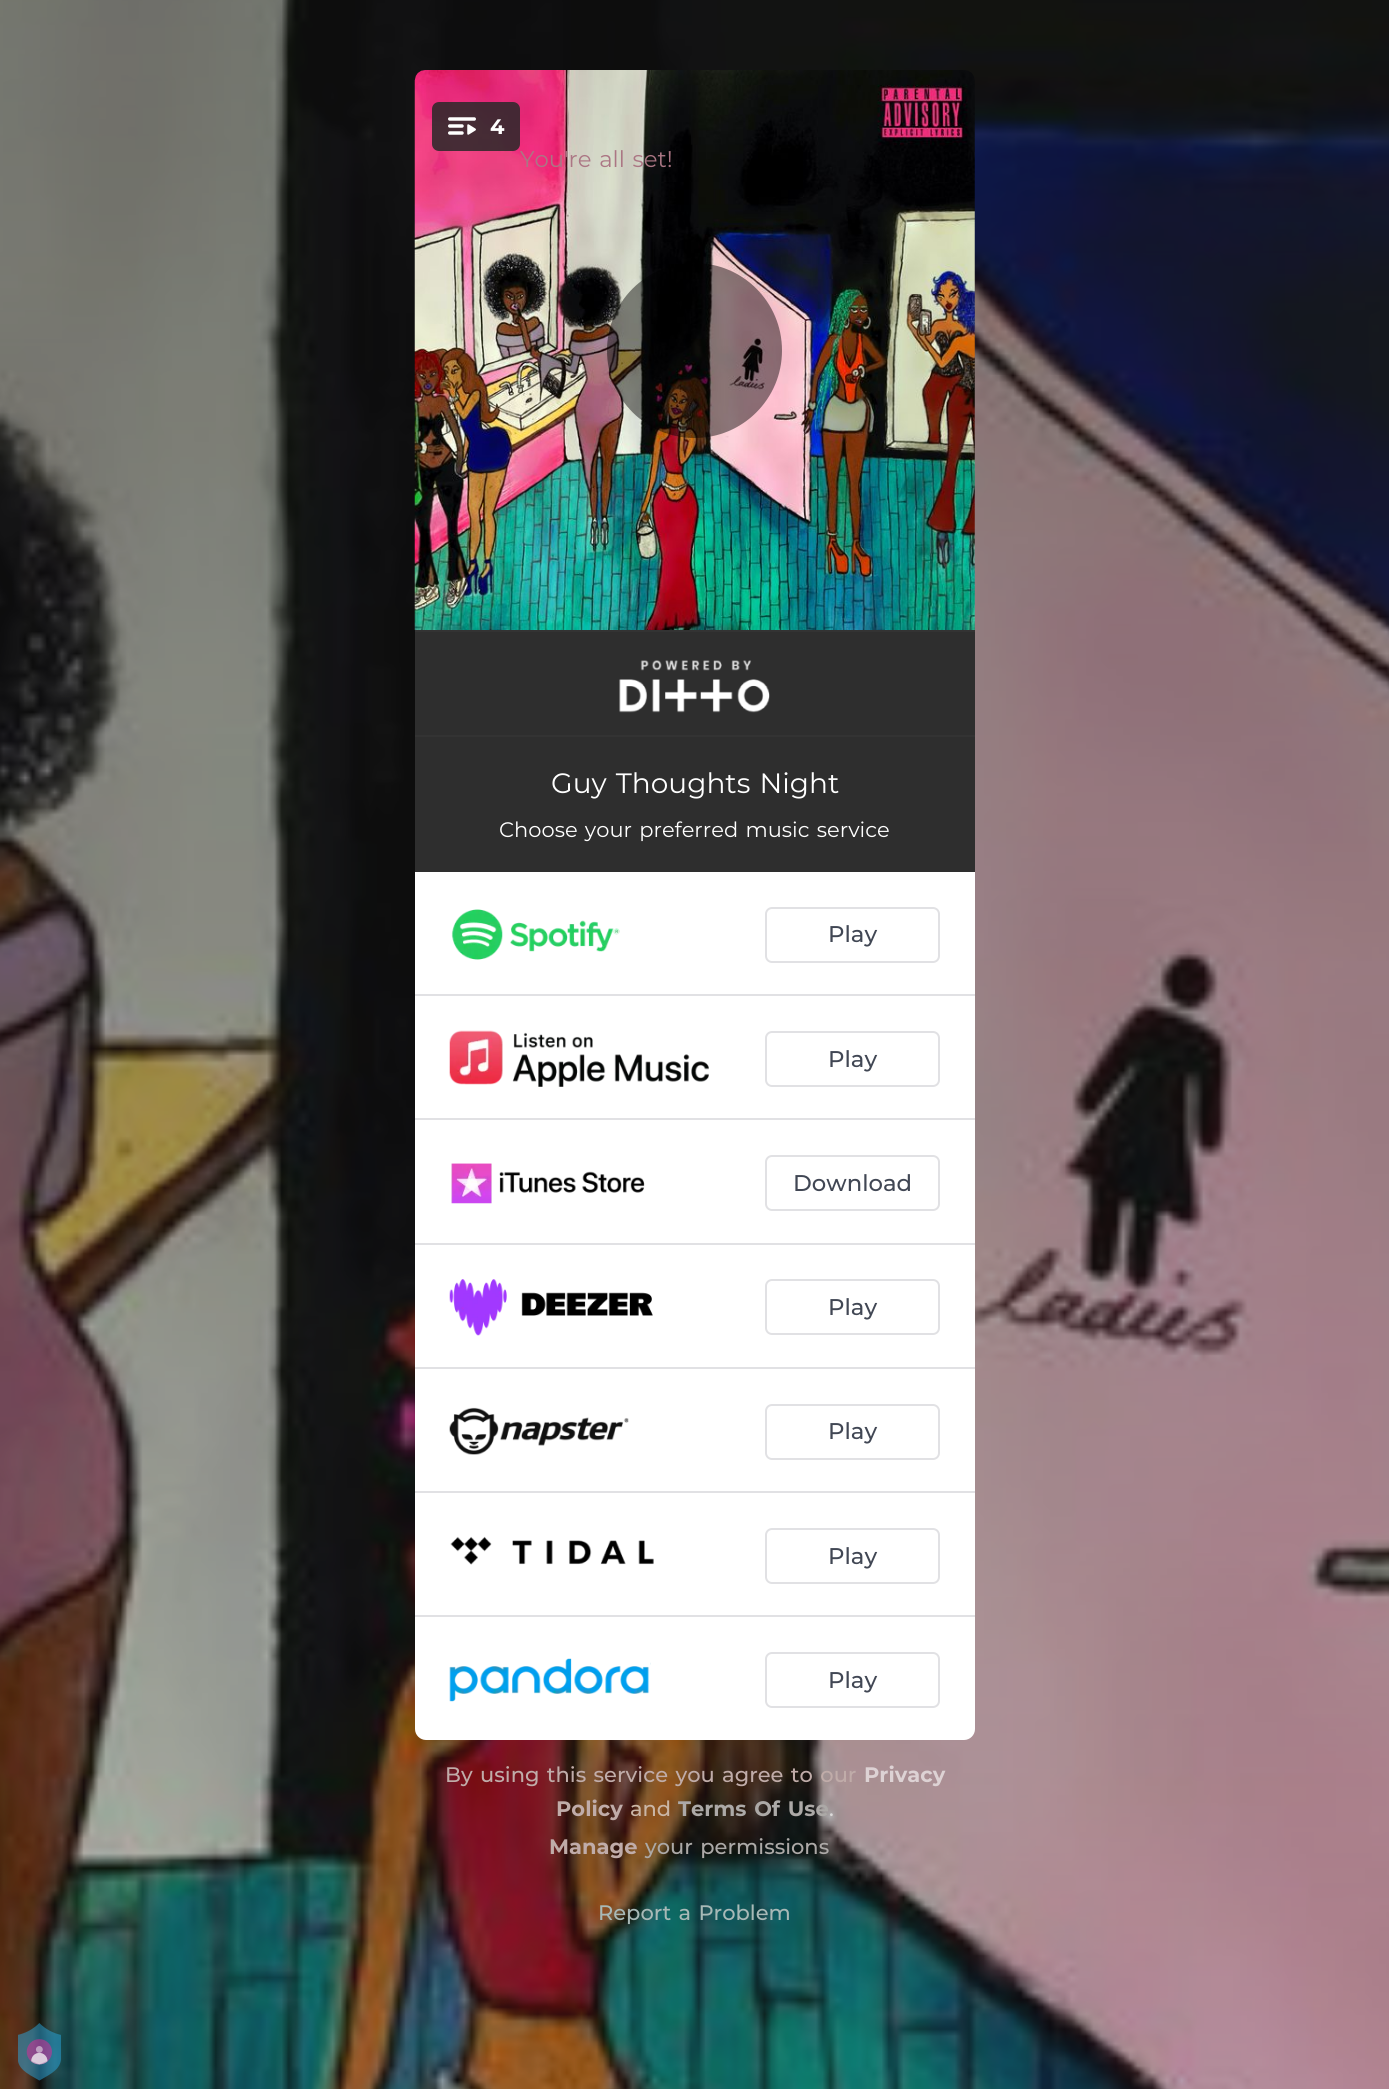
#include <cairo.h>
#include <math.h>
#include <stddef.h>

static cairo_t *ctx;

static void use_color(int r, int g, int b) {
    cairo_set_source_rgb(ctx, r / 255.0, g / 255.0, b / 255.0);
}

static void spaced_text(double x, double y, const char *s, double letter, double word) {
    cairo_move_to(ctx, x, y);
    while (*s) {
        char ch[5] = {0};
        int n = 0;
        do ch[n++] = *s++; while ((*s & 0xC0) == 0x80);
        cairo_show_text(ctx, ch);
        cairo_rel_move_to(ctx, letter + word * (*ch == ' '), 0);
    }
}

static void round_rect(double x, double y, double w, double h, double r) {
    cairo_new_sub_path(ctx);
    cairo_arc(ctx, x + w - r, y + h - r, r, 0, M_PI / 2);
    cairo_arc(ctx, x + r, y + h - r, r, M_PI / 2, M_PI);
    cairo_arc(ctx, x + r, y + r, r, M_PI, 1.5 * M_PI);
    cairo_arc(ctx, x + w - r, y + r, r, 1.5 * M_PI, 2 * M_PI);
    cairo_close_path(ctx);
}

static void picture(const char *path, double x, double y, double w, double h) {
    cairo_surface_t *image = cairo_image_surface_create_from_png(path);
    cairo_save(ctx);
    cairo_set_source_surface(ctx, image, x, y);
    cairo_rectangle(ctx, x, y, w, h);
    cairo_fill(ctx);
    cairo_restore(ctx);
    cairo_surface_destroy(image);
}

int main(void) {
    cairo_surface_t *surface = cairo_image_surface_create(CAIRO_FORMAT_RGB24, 1389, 2089);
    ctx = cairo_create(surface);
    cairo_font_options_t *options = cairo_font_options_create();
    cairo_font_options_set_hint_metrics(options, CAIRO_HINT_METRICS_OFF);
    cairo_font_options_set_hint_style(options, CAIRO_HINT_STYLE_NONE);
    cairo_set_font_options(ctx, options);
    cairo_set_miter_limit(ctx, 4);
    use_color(255, 255, 255);
    cairo_paint(ctx);
    picture("img1.png", 0, 0, 1389, 2089);
    picture("img2.png", 414, 70, 561, 560);
    cairo_select_font_face(ctx, "Montserrat", CAIRO_FONT_SLANT_NORMAL, CAIRO_FONT_WEIGHT_NORMAL);
    cairo_set_font_size(ctx, 22.75);
    use_color(171, 118, 132);
    spaced_text(520, 167, "You're all set!", 0, 1.75);
    cairo_set_source_rgba(ctx, 0.157, 0.157, 0.157, 0.85);
    round_rect(432, 102, 88, 49, 7);
    cairo_fill(ctx);
    picture("img3.png", 448, 117, 28, 18);
    cairo_select_font_face(ctx, "Montserrat", CAIRO_FONT_SLANT_NORMAL, CAIRO_FONT_WEIGHT_BOLD);
    cairo_set_font_size(ctx, 21);
    use_color(255, 255, 255);
    cairo_move_to(ctx, 490, 134);
    cairo_show_text(ctx, "4");
    cairo_set_source_rgba(ctx, 0, 0, 0, 0.45);
    cairo_new_path(ctx);
    cairo_arc(ctx, 694.5, 350.5, 87.5, 0, 2 * M_PI);
    cairo_fill(ctx);
    use_color(46, 46, 46);
    cairo_rectangle(ctx, 415, 632, 560, 103);
    cairo_fill(ctx);
    use_color(51, 51, 51);
    cairo_rectangle(ctx, 415, 630, 560, 2);
    cairo_fill(ctx);
    cairo_rectangle(ctx, 415, 735, 560, 2);
    cairo_fill(ctx);
    picture("img4.png", 619, 660, 151, 53);
    use_color(46, 46, 46);
    cairo_rectangle(ctx, 415, 737, 560, 135);
    cairo_fill(ctx);
    cairo_select_font_face(ctx, "Montserrat", CAIRO_FONT_SLANT_NORMAL, CAIRO_FONT_WEIGHT_NORMAL);
    cairo_set_font_size(ctx, 28);
    use_color(255, 255, 255);
    spaced_text(551, 793, "Guy Thoughts Night", 0, 1.75);
    cairo_set_font_size(ctx, 21);
    spaced_text(499, 837, "Choose your preferred music service", 0, 1.75);
    cairo_new_path(ctx);
    cairo_move_to(ctx, 415, 872);
    cairo_line_to(ctx, 975, 872);
    cairo_line_to(ctx, 975, 1729);
    cairo_curve_to(ctx, 975, 1735, 970, 1740, 964, 1740);
    cairo_line_to(ctx, 426, 1740);
    cairo_curve_to(ctx, 420, 1740, 415, 1735, 415, 1729);
    cairo_close_path(ctx);
    cairo_fill(ctx);
    use_color(225, 225, 228);
    cairo_rectangle(ctx, 415, 994, 560, 2);
    cairo_fill(ctx);
    picture("img5.png", 451, 909, 169, 51);
    round_rect(766, 908, 173, 54, 6);
    cairo_stroke(ctx);
    cairo_select_font_face(ctx, "Montserrat Medium", CAIRO_FONT_SLANT_NORMAL, CAIRO_FONT_WEIGHT_NORMAL);
    cairo_set_font_size(ctx, 22.75);
    use_color(65, 71, 84);
    cairo_move_to(ctx, 828, 942);
    cairo_show_text(ctx, "Play");
    use_color(225, 225, 228);
    cairo_rectangle(ctx, 415, 1118, 560, 2);
    cairo_fill(ctx);
    picture("img6.png", 449, 1030, 260, 57);
    round_rect(766, 1032, 173, 54, 6);
    cairo_stroke(ctx);
    use_color(65, 71, 84);
    cairo_move_to(ctx, 828, 1067);
    cairo_show_text(ctx, "Play");
    use_color(225, 225, 228);
    cairo_rectangle(ctx, 415, 1243, 560, 2);
    cairo_fill(ctx);
    picture("img7.png", 451, 1163, 194, 41);
    round_rect(766, 1156, 173, 54, 6);
    cairo_stroke(ctx);
    use_color(65, 71, 84);
    cairo_move_to(ctx, 793, 1191);
    cairo_show_text(ctx, "Download");
    use_color(225, 225, 228);
    cairo_rectangle(ctx, 415, 1367, 560, 2);
    cairo_fill(ctx);
    picture("img8.png", 449, 1279, 204, 57);
    round_rect(766, 1280, 173, 54, 6);
    cairo_stroke(ctx);
    use_color(65, 71, 84);
    cairo_move_to(ctx, 828, 1315);
    cairo_show_text(ctx, "Play");
    use_color(225, 225, 228);
    cairo_rectangle(ctx, 415, 1491, 560, 2);
    cairo_fill(ctx);
    picture("img9.png", 449, 1407, 180, 48);
    round_rect(766, 1405, 173, 54, 6);
    cairo_stroke(ctx);
    use_color(65, 71, 84);
    cairo_move_to(ctx, 828, 1439);
    cairo_show_text(ctx, "Play");
    use_color(225, 225, 228);
    cairo_rectangle(ctx, 415, 1615, 560, 2);
    cairo_fill(ctx);
    picture("img10.png", 450, 1536, 204, 29);
    round_rect(766, 1529, 173, 54, 6);
    cairo_stroke(ctx);
    use_color(65, 71, 84);
    cairo_move_to(ctx, 828, 1564);
    cairo_show_text(ctx, "Play");
    picture("img11.png", 449, 1658, 202, 44);
    round_rect(766, 1653, 173, 54, 6);
    use_color(225, 225, 228);
    cairo_stroke(ctx);
    use_color(65, 71, 84);
    cairo_move_to(ctx, 828, 1688);
    cairo_show_text(ctx, "Play");
    cairo_set_font_size(ctx, 21);
    use_color(192, 172, 169);
    spaced_text(445, 1782, "By using this service you agree to our", 0, 1.75);
    cairo_select_font_face(ctx, "Montserrat", CAIRO_FONT_SLANT_NORMAL, CAIRO_FONT_WEIGHT_BOLD);
    use_color(221, 210, 212);
    cairo_move_to(ctx, 864, 1782);
    cairo_show_text(ctx, "Privacy");
    use_color(192, 172, 169);
    cairo_move_to(ctx, 556, 1816);
    cairo_show_text(ctx, "Policy");
    cairo_select_font_face(ctx, "Montserrat Medium", CAIRO_FONT_SLANT_NORMAL, CAIRO_FONT_WEIGHT_NORMAL);
    use_color(202, 182, 166);
    cairo_move_to(ctx, 630, 1816);
    cairo_show_text(ctx, "and");
    cairo_select_font_face(ctx, "Montserrat", CAIRO_FONT_SLANT_NORMAL, CAIRO_FONT_WEIGHT_BOLD);
    use_color(172, 169, 167);
    spaced_text(678, 1816, "Terms Of Use", 0, 1.75);
    cairo_select_font_face(ctx, "Montserrat Medium", CAIRO_FONT_SLANT_NORMAL, CAIRO_FONT_WEIGHT_NORMAL);
    use_color(220, 218, 218);
    cairo_move_to(ctx, 829, 1816);
    cairo_show_text(ctx, ".");
    cairo_select_font_face(ctx, "Montserrat", CAIRO_FONT_SLANT_NORMAL, CAIRO_FONT_WEIGHT_BOLD);
    use_color(192, 172, 169);
    cairo_move_to(ctx, 549, 1854);
    cairo_show_text(ctx, "Manage");
    cairo_select_font_face(ctx, "Montserrat Medium", CAIRO_FONT_SLANT_NORMAL, CAIRO_FONT_WEIGHT_NORMAL);
    use_color(172, 169, 167);
    spaced_text(645, 1854, "your permissions", 0, 1.75);
    use_color(168, 185, 183);
    spaced_text(598, 1920, "Report a Problem", 0, 1.75);
    picture("img12.png", 18, 2023, 43, 58);
    cairo_surface_write_to_png(surface, "result.png");
    cairo_font_options_destroy(options);
    cairo_destroy(ctx);
    cairo_surface_destroy(surface);
    return 0;
}
